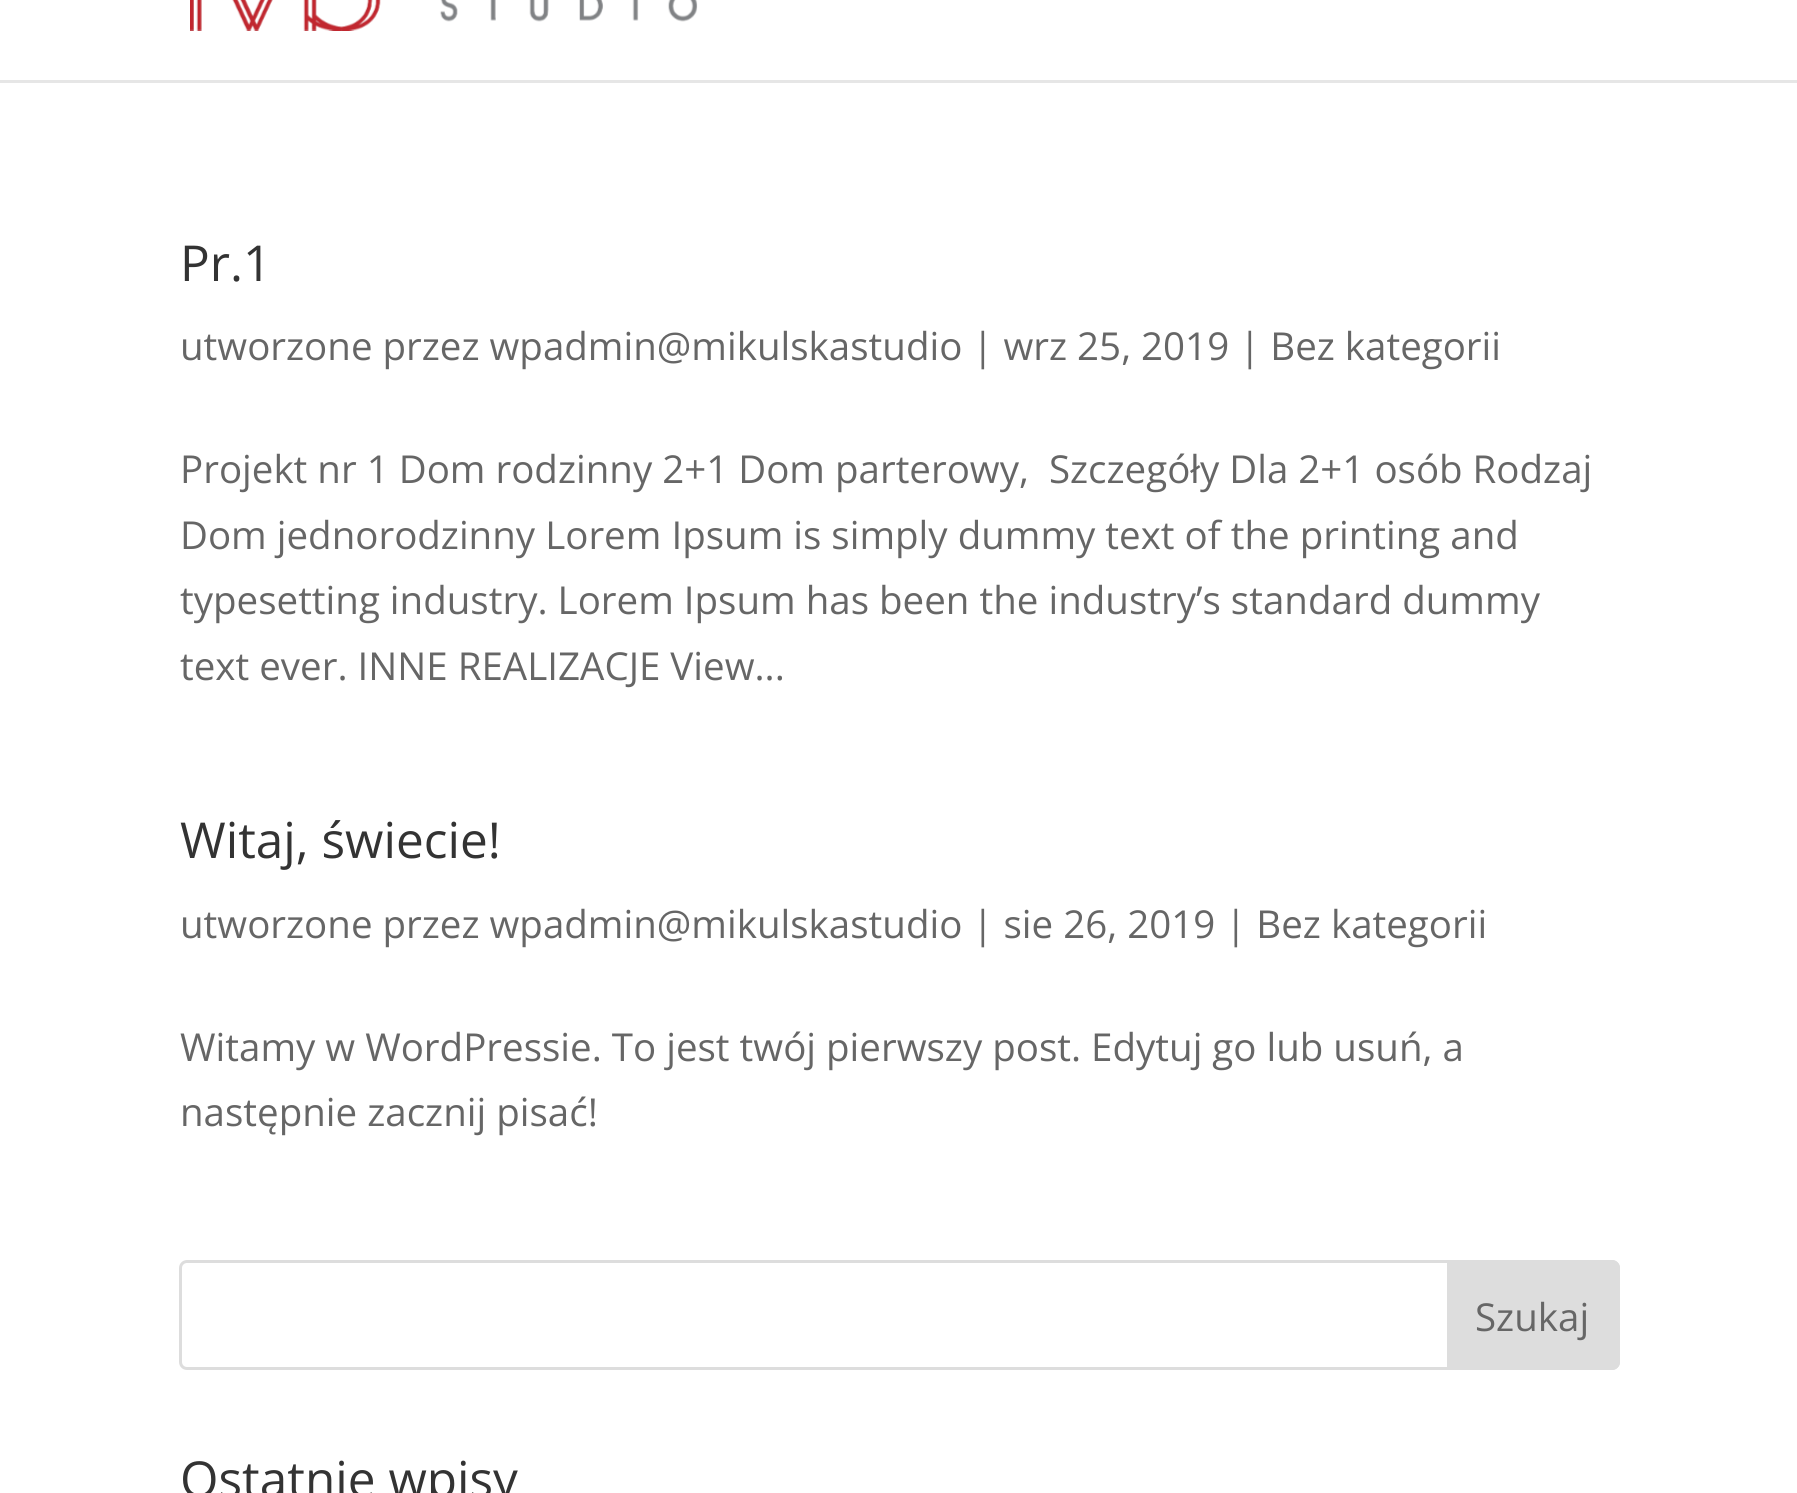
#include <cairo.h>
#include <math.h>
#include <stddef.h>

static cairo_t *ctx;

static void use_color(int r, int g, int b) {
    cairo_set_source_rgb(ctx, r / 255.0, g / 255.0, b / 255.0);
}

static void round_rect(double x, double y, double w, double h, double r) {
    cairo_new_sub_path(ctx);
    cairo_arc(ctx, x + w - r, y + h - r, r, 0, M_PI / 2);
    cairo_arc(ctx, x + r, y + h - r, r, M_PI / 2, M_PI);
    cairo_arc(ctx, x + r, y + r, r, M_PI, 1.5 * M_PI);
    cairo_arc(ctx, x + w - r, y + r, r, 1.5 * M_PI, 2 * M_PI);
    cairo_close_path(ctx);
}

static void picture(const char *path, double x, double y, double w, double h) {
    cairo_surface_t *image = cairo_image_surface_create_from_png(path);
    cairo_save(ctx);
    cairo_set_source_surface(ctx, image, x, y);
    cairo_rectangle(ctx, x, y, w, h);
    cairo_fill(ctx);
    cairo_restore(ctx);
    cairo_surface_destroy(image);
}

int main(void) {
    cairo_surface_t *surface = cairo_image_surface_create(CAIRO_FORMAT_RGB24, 1797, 1493);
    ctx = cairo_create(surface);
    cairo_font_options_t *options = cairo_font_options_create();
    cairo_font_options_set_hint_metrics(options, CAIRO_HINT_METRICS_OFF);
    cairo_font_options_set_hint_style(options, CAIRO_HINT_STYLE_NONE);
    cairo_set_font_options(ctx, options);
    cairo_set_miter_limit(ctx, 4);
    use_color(255, 255, 255);
    cairo_paint(ctx);
    use_color(230, 230, 230);
    cairo_new_path(ctx);
    cairo_move_to(ctx, 0, 80);
    cairo_line_to(ctx, 0, 83);
    cairo_line_to(ctx, 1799, 83);
    cairo_line_to(ctx, 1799, -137);
    cairo_line_to(ctx, 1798, -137);
    cairo_line_to(ctx, 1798, 80);
    cairo_close_path(ctx);
    cairo_fill(ctx);
    picture("img1.png", 190, 0, 508, 31);
    cairo_select_font_face(ctx, "Open Sans", CAIRO_FONT_SLANT_NORMAL, CAIRO_FONT_WEIGHT_NORMAL);
    cairo_set_font_size(ctx, 49.5);
    use_color(51, 51, 51);
    cairo_move_to(ctx, 180, 281);
    cairo_show_text(ctx, "Pr.1");
    cairo_set_font_size(ctx, 38.5);
    use_color(102, 102, 102);
    cairo_move_to(ctx, 180, 360);
    cairo_show_text(ctx, "utworzone przez wpadmin@mikulskastudio | wrz 25, 2019 | Bez kategorii");
    cairo_move_to(ctx, 180, 483);
    cairo_show_text(ctx, "Projekt nr 1 Dom rodzinny 2+1 Dom parterowy,  Szczegóły Dla 2+1 osób Rodzaj");
    cairo_move_to(ctx, 180, 549);
    cairo_show_text(ctx, "Dom jednorodzinny Lorem Ipsum is simply dummy text of the printing and");
    cairo_move_to(ctx, 180, 614);
    cairo_show_text(ctx, "typesetting industry. Lorem Ipsum has been the industry’s standard dummy");
    cairo_move_to(ctx, 180, 680);
    cairo_show_text(ctx, "text ever. INNE REALIZACJE View...");
    cairo_set_font_size(ctx, 49.5);
    use_color(51, 51, 51);
    cairo_move_to(ctx, 180, 858);
    cairo_show_text(ctx, "Witaj, świecie!");
    cairo_set_font_size(ctx, 38.5);
    use_color(102, 102, 102);
    cairo_move_to(ctx, 180, 938);
    cairo_show_text(ctx, "utworzone przez wpadmin@mikulskastudio | sie 26, 2019 | Bez kategorii");
    cairo_move_to(ctx, 180, 1061);
    cairo_show_text(ctx, "Witamy w WordPressie. To jest twój pierwszy post. Edytuj go lub usuń, a");
    cairo_move_to(ctx, 180, 1126);
    cairo_show_text(ctx, "następnie zacznij pisać!");
    round_rect(180.5, 1261.5, 1438, 107, 6.5);
    use_color(221, 221, 221);
    cairo_set_line_width(ctx, 3);
    cairo_stroke(ctx);
    cairo_new_path(ctx);
    cairo_move_to(ctx, 1448.5, 1261.5);
    cairo_line_to(ctx, 1612, 1261.5);
    cairo_curve_to(ctx, 1615.5, 1261.5, 1618.5, 1264.5, 1618.5, 1268);
    cairo_line_to(ctx, 1618.5, 1362);
    cairo_curve_to(ctx, 1618.5, 1365.5, 1615.5, 1368.5, 1612, 1368.5);
    cairo_line_to(ctx, 1448.5, 1368.5);
    cairo_close_path(ctx);
    cairo_fill_preserve(ctx);
    cairo_stroke(ctx);
    use_color(102, 102, 102);
    cairo_move_to(ctx, 1475, 1331);
    cairo_show_text(ctx, "Szukaj");
    cairo_set_font_size(ctx, 49.5);
    use_color(51, 51, 51);
    cairo_move_to(ctx, 180, 1497);
    cairo_show_text(ctx, "Ostatnie wpisy");
    cairo_surface_write_to_png(surface, "result.png");
    cairo_font_options_destroy(options);
    cairo_destroy(ctx);
    cairo_surface_destroy(surface);
    return 0;
}
